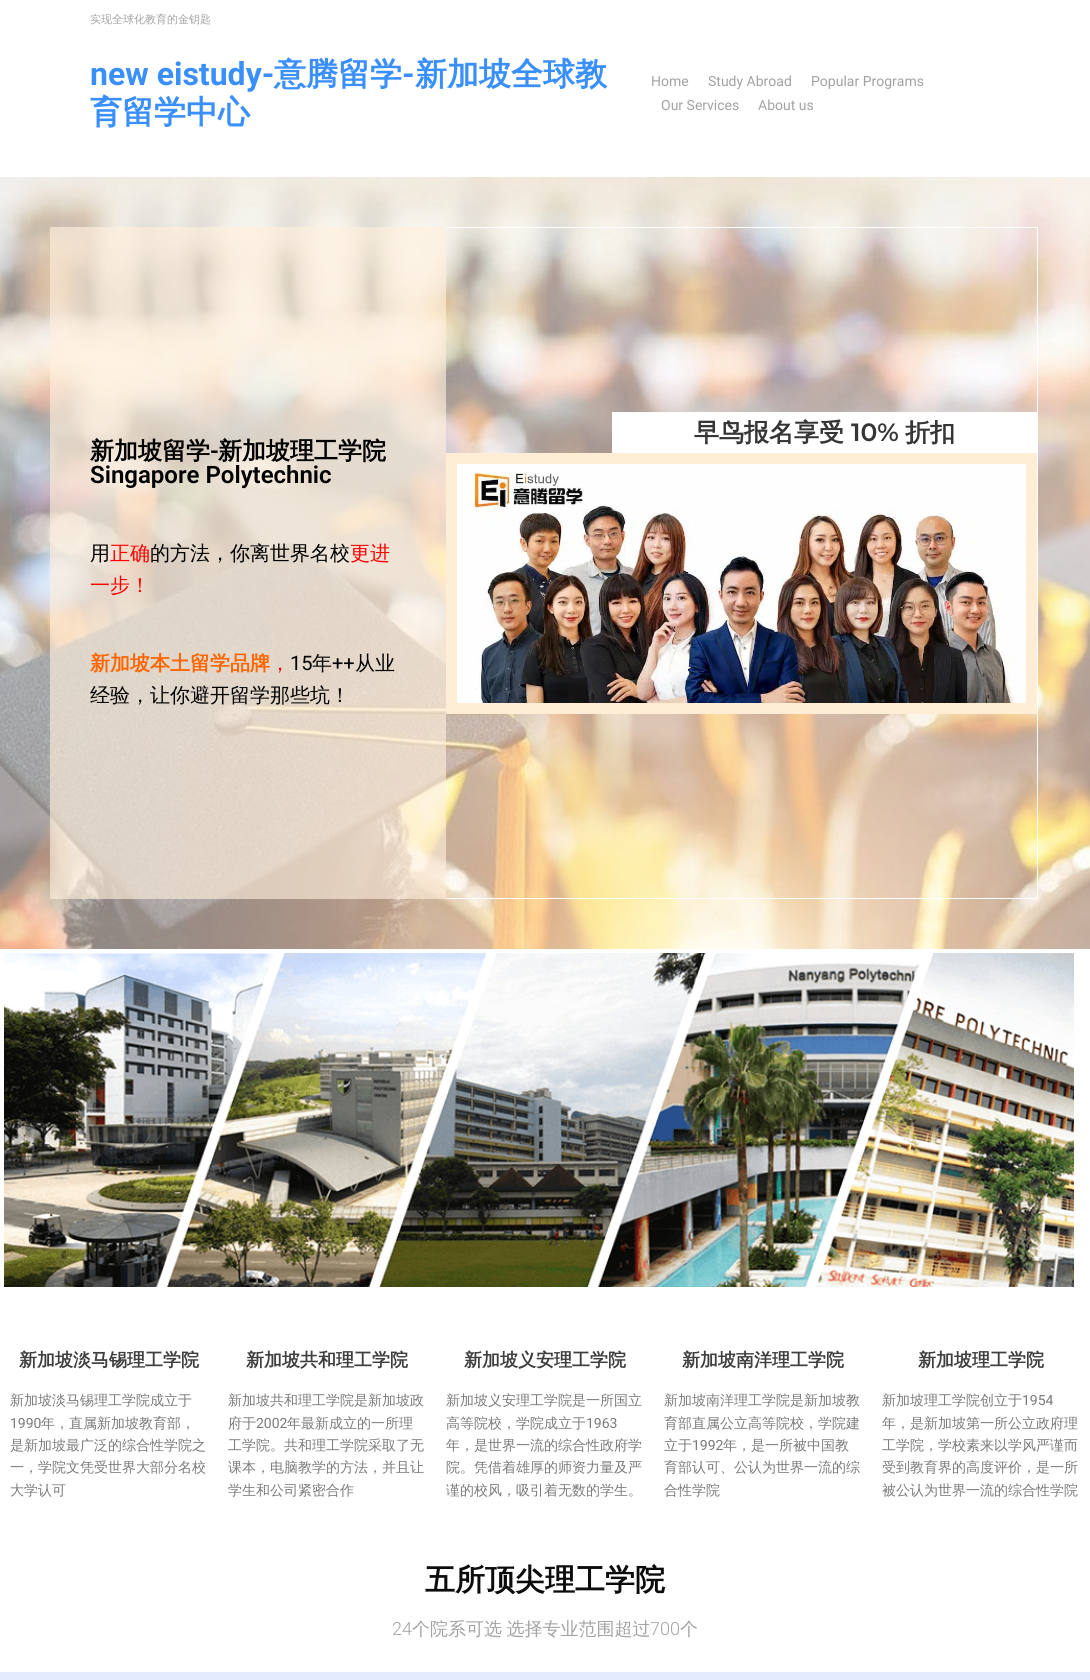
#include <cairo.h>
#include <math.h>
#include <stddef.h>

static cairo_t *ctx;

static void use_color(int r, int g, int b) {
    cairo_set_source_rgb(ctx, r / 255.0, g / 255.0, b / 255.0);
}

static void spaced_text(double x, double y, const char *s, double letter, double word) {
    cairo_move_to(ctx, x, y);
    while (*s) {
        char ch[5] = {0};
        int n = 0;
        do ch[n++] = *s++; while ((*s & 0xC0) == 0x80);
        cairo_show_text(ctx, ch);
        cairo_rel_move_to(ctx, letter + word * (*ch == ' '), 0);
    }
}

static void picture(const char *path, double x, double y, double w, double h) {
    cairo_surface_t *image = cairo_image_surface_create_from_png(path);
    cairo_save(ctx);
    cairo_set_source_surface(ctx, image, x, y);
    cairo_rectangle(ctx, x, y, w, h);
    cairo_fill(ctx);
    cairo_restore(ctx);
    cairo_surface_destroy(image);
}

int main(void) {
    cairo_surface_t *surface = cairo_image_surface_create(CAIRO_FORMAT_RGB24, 1090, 1680);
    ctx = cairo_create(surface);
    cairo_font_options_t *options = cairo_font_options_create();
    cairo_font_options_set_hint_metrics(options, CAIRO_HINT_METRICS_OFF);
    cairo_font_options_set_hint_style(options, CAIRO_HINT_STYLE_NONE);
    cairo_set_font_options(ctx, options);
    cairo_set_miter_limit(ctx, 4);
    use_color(255, 255, 255);
    cairo_paint(ctx);
    cairo_select_font_face(ctx, "WenQuanYi Zen Hei Medium", CAIRO_FONT_SLANT_NORMAL, CAIRO_FONT_WEIGHT_NORMAL);
    cairo_set_font_size(ctx, 11);
    use_color(161, 162, 164);
    cairo_move_to(ctx, 90, 23);
    cairo_show_text(ctx, "实现全球化教育的金钥匙");
    cairo_select_font_face(ctx, "Roboto", CAIRO_FONT_SLANT_NORMAL, CAIRO_FONT_WEIGHT_BOLD);
    cairo_set_font_size(ctx, 32);
    use_color(57, 143, 252);
    cairo_move_to(ctx, 90, 85);
    cairo_show_text(ctx, "new eistudy-");
    cairo_select_font_face(ctx, "WenQuanYi Zen Hei", CAIRO_FONT_SLANT_NORMAL, CAIRO_FONT_WEIGHT_BOLD);
    cairo_move_to(ctx, 274, 85);
    cairo_show_text(ctx, "意腾留学");
    cairo_select_font_face(ctx, "Roboto", CAIRO_FONT_SLANT_NORMAL, CAIRO_FONT_WEIGHT_BOLD);
    cairo_move_to(ctx, 402, 85);
    cairo_show_text(ctx, "-");
    cairo_select_font_face(ctx, "WenQuanYi Zen Hei", CAIRO_FONT_SLANT_NORMAL, CAIRO_FONT_WEIGHT_BOLD);
    cairo_move_to(ctx, 415, 85);
    cairo_show_text(ctx, "新加坡全球教");
    cairo_move_to(ctx, 90, 123);
    cairo_show_text(ctx, "育留学中心");
    cairo_select_font_face(ctx, "Roboto", CAIRO_FONT_SLANT_NORMAL, CAIRO_FONT_WEIGHT_NORMAL);
    cairo_set_font_size(ctx, 14);
    use_color(161, 162, 164);
    cairo_move_to(ctx, 651, 86);
    cairo_show_text(ctx, "Home");
    cairo_move_to(ctx, 708, 86);
    cairo_show_text(ctx, "Study Abroad");
    cairo_move_to(ctx, 811, 86);
    cairo_show_text(ctx, "Popular Programs");
    cairo_move_to(ctx, 661, 110);
    cairo_show_text(ctx, "Our Services");
    cairo_move_to(ctx, 758, 110);
    cairo_show_text(ctx, "About us");
    picture("img1.png", 0, 177, 1090, 772);
    use_color(255, 255, 255);
    cairo_rectangle(ctx, 446, 227, 592, 1);
    cairo_fill(ctx);
    cairo_rectangle(ctx, 1037, 227, 1, 672);
    cairo_fill(ctx);
    cairo_rectangle(ctx, 446, 898, 592, 1);
    cairo_fill(ctx);
    cairo_rectangle(ctx, 612, 412, 425, 41);
    cairo_fill(ctx);
    cairo_select_font_face(ctx, "WenQuanYi Zen Hei", CAIRO_FONT_SLANT_NORMAL, CAIRO_FONT_WEIGHT_BOLD);
    cairo_set_font_size(ctx, 25);
    use_color(54, 54, 54);
    cairo_move_to(ctx, 694, 441);
    cairo_show_text(ctx, "早鸟报名享受");
    cairo_select_font_face(ctx, "Montserrat SemiBold", CAIRO_FONT_SLANT_NORMAL, CAIRO_FONT_WEIGHT_NORMAL);
    cairo_move_to(ctx, 851, 441);
    cairo_show_text(ctx, "10%");
    cairo_select_font_face(ctx, "WenQuanYi Zen Hei", CAIRO_FONT_SLANT_NORMAL, CAIRO_FONT_WEIGHT_BOLD);
    cairo_move_to(ctx, 905, 441);
    cairo_show_text(ctx, "折扣");
    cairo_rectangle(ctx, 451.5, 458.5, 580, 250);
    use_color(255, 237, 214);
    cairo_set_line_width(ctx, 11);
    cairo_stroke(ctx);
    picture("img2.png", 457, 464, 569, 239);
    cairo_set_source_rgba(ctx, 1, 0.937, 0.863, 0.63);
    cairo_rectangle(ctx, 50, 227, 396, 672);
    cairo_fill(ctx);
    cairo_set_font_size(ctx, 24);
    use_color(0, 0, 0);
    cairo_move_to(ctx, 90, 459);
    cairo_show_text(ctx, "新加坡留学");
    cairo_select_font_face(ctx, "Roboto SemiBold", CAIRO_FONT_SLANT_NORMAL, CAIRO_FONT_WEIGHT_NORMAL);
    cairo_move_to(ctx, 210, 459);
    cairo_show_text(ctx, "-");
    cairo_select_font_face(ctx, "WenQuanYi Zen Hei", CAIRO_FONT_SLANT_NORMAL, CAIRO_FONT_WEIGHT_BOLD);
    cairo_move_to(ctx, 218, 459);
    cairo_show_text(ctx, "新加坡理工学院");
    cairo_select_font_face(ctx, "Roboto SemiBold", CAIRO_FONT_SLANT_NORMAL, CAIRO_FONT_WEIGHT_NORMAL);
    cairo_move_to(ctx, 90, 483);
    cairo_show_text(ctx, "Singapore Polytechnic");
    cairo_select_font_face(ctx, "WenQuanYi Zen Hei Medium", CAIRO_FONT_SLANT_NORMAL, CAIRO_FONT_WEIGHT_NORMAL);
    cairo_set_font_size(ctx, 20);
    cairo_move_to(ctx, 90, 560);
    cairo_show_text(ctx, "用");
    use_color(255, 0, 0);
    cairo_move_to(ctx, 110, 560);
    cairo_show_text(ctx, "正确");
    use_color(0, 0, 0);
    cairo_move_to(ctx, 150, 560);
    cairo_show_text(ctx, "的方法，你离世界名校");
    use_color(255, 0, 0);
    cairo_move_to(ctx, 350, 560);
    cairo_show_text(ctx, "更进");
    cairo_move_to(ctx, 90, 592);
    cairo_show_text(ctx, "一步！");
    cairo_select_font_face(ctx, "WenQuanYi Zen Hei", CAIRO_FONT_SLANT_NORMAL, CAIRO_FONT_WEIGHT_BOLD);
    use_color(255, 102, 0);
    cairo_move_to(ctx, 90, 670);
    cairo_show_text(ctx, "新加坡本土留学品牌");
    cairo_select_font_face(ctx, "Roboto", CAIRO_FONT_SLANT_NORMAL, CAIRO_FONT_WEIGHT_NORMAL);
    use_color(0, 0, 0);
    cairo_move_to(ctx, 290, 670);
    cairo_show_text(ctx, "15");
    cairo_select_font_face(ctx, "WenQuanYi Zen Hei Medium", CAIRO_FONT_SLANT_NORMAL, CAIRO_FONT_WEIGHT_NORMAL);
    cairo_move_to(ctx, 312, 670);
    cairo_show_text(ctx, "年");
    cairo_select_font_face(ctx, "Roboto", CAIRO_FONT_SLANT_NORMAL, CAIRO_FONT_WEIGHT_NORMAL);
    cairo_move_to(ctx, 332, 670);
    cairo_show_text(ctx, "++");
    cairo_select_font_face(ctx, "WenQuanYi Zen Hei Medium", CAIRO_FONT_SLANT_NORMAL, CAIRO_FONT_WEIGHT_NORMAL);
    cairo_move_to(ctx, 355, 670);
    cairo_show_text(ctx, "从业");
    use_color(255, 0, 0);
    cairo_move_to(ctx, 270, 670);
    cairo_show_text(ctx, "，");
    use_color(0, 0, 0);
    cairo_move_to(ctx, 90, 702);
    cairo_show_text(ctx, "经验，让你避开留学那些坑！");
    picture("img3.png", 4, 953, 1070, 334);
    cairo_select_font_face(ctx, "WenQuanYi Zen Hei", CAIRO_FONT_SLANT_NORMAL, CAIRO_FONT_WEIGHT_BOLD);
    cairo_set_font_size(ctx, 18);
    use_color(63, 63, 63);
    cairo_move_to(ctx, 19, 1366);
    cairo_show_text(ctx, "新加坡淡马锡理工学院");
    cairo_select_font_face(ctx, "WenQuanYi Zen Hei Medium", CAIRO_FONT_SLANT_NORMAL, CAIRO_FONT_WEIGHT_NORMAL);
    cairo_set_font_size(ctx, 14);
    use_color(122, 122, 122);
    cairo_move_to(ctx, 10, 1405);
    cairo_show_text(ctx, "新加坡淡马锡理工学院成立于");
    cairo_select_font_face(ctx, "Roboto", CAIRO_FONT_SLANT_NORMAL, CAIRO_FONT_WEIGHT_NORMAL);
    cairo_move_to(ctx, 10, 1428);
    cairo_show_text(ctx, "1990");
    cairo_select_font_face(ctx, "WenQuanYi Zen Hei Medium", CAIRO_FONT_SLANT_NORMAL, CAIRO_FONT_WEIGHT_NORMAL);
    cairo_move_to(ctx, 41, 1428);
    cairo_show_text(ctx, "年，直属新加坡教育部，");
    cairo_move_to(ctx, 10, 1450);
    cairo_show_text(ctx, "是新加坡最广泛的综合性学院之");
    cairo_move_to(ctx, 10, 1472);
    cairo_show_text(ctx, "一，学院文凭受世界大部分名校");
    cairo_move_to(ctx, 10, 1495);
    cairo_show_text(ctx, "大学认可");
    cairo_select_font_face(ctx, "WenQuanYi Zen Hei", CAIRO_FONT_SLANT_NORMAL, CAIRO_FONT_WEIGHT_BOLD);
    cairo_set_font_size(ctx, 18);
    use_color(63, 63, 63);
    cairo_move_to(ctx, 246, 1366);
    cairo_show_text(ctx, "新加坡共和理工学院");
    cairo_select_font_face(ctx, "WenQuanYi Zen Hei Medium", CAIRO_FONT_SLANT_NORMAL, CAIRO_FONT_WEIGHT_NORMAL);
    cairo_set_font_size(ctx, 14);
    use_color(122, 122, 122);
    cairo_move_to(ctx, 228, 1405);
    cairo_show_text(ctx, "新加坡共和理工学院是新加坡政");
    cairo_move_to(ctx, 228, 1428);
    cairo_show_text(ctx, "府于");
    cairo_select_font_face(ctx, "Roboto", CAIRO_FONT_SLANT_NORMAL, CAIRO_FONT_WEIGHT_NORMAL);
    cairo_move_to(ctx, 256, 1428);
    cairo_show_text(ctx, "2002");
    cairo_select_font_face(ctx, "WenQuanYi Zen Hei Medium", CAIRO_FONT_SLANT_NORMAL, CAIRO_FONT_WEIGHT_NORMAL);
    cairo_move_to(ctx, 287, 1428);
    cairo_show_text(ctx, "年最新成立的一所理");
    cairo_move_to(ctx, 228, 1450);
    cairo_show_text(ctx, "工学院。共和理工学院采取了无");
    cairo_move_to(ctx, 228, 1472);
    cairo_show_text(ctx, "课本，电脑教学的方法，并且让");
    cairo_move_to(ctx, 228, 1495);
    cairo_show_text(ctx, "学生和公司紧密合作");
    cairo_select_font_face(ctx, "WenQuanYi Zen Hei", CAIRO_FONT_SLANT_NORMAL, CAIRO_FONT_WEIGHT_BOLD);
    cairo_set_font_size(ctx, 18);
    use_color(63, 63, 63);
    cairo_move_to(ctx, 464, 1366);
    cairo_show_text(ctx, "新加坡义安理工学院");
    cairo_select_font_face(ctx, "WenQuanYi Zen Hei Medium", CAIRO_FONT_SLANT_NORMAL, CAIRO_FONT_WEIGHT_NORMAL);
    cairo_set_font_size(ctx, 14);
    use_color(122, 122, 122);
    cairo_move_to(ctx, 446, 1405);
    cairo_show_text(ctx, "新加坡义安理工学院是一所国立");
    cairo_move_to(ctx, 446, 1428);
    cairo_show_text(ctx, "高等院校，学院成立于");
    cairo_select_font_face(ctx, "Roboto", CAIRO_FONT_SLANT_NORMAL, CAIRO_FONT_WEIGHT_NORMAL);
    cairo_move_to(ctx, 586, 1428);
    cairo_show_text(ctx, "1963");
    cairo_select_font_face(ctx, "WenQuanYi Zen Hei Medium", CAIRO_FONT_SLANT_NORMAL, CAIRO_FONT_WEIGHT_NORMAL);
    cairo_move_to(ctx, 446, 1450);
    cairo_show_text(ctx, "年，是世界一流的综合性政府学");
    cairo_move_to(ctx, 446, 1472);
    cairo_show_text(ctx, "院。凭借着雄厚的师资力量及严");
    cairo_move_to(ctx, 446, 1495);
    cairo_show_text(ctx, "谨的校风，吸引着无数的学生。");
    cairo_select_font_face(ctx, "WenQuanYi Zen Hei", CAIRO_FONT_SLANT_NORMAL, CAIRO_FONT_WEIGHT_BOLD);
    cairo_set_font_size(ctx, 18);
    use_color(63, 63, 63);
    cairo_move_to(ctx, 682, 1366);
    cairo_show_text(ctx, "新加坡南洋理工学院");
    cairo_select_font_face(ctx, "WenQuanYi Zen Hei Medium", CAIRO_FONT_SLANT_NORMAL, CAIRO_FONT_WEIGHT_NORMAL);
    cairo_set_font_size(ctx, 14);
    use_color(122, 122, 122);
    cairo_move_to(ctx, 664, 1405);
    cairo_show_text(ctx, "新加坡南洋理工学院是新加坡教");
    cairo_move_to(ctx, 664, 1428);
    cairo_show_text(ctx, "育部直属公立高等院校，学院建");
    cairo_move_to(ctx, 664, 1450);
    cairo_show_text(ctx, "立于");
    cairo_select_font_face(ctx, "Roboto", CAIRO_FONT_SLANT_NORMAL, CAIRO_FONT_WEIGHT_NORMAL);
    cairo_move_to(ctx, 692, 1450);
    cairo_show_text(ctx, "1992");
    cairo_select_font_face(ctx, "WenQuanYi Zen Hei Medium", CAIRO_FONT_SLANT_NORMAL, CAIRO_FONT_WEIGHT_NORMAL);
    cairo_move_to(ctx, 723, 1450);
    cairo_show_text(ctx, "年，是一所被中国教");
    cairo_move_to(ctx, 664, 1472);
    cairo_show_text(ctx, "育部认可、公认为世界一流的综");
    cairo_move_to(ctx, 664, 1495);
    cairo_show_text(ctx, "合性学院");
    cairo_select_font_face(ctx, "WenQuanYi Zen Hei", CAIRO_FONT_SLANT_NORMAL, CAIRO_FONT_WEIGHT_BOLD);
    cairo_set_font_size(ctx, 18);
    use_color(63, 63, 63);
    cairo_move_to(ctx, 918, 1366);
    cairo_show_text(ctx, "新加坡理工学院");
    cairo_select_font_face(ctx, "WenQuanYi Zen Hei Medium", CAIRO_FONT_SLANT_NORMAL, CAIRO_FONT_WEIGHT_NORMAL);
    cairo_set_font_size(ctx, 14);
    use_color(122, 122, 122);
    cairo_move_to(ctx, 882, 1405);
    cairo_show_text(ctx, "新加坡理工学院创立于");
    cairo_select_font_face(ctx, "Roboto", CAIRO_FONT_SLANT_NORMAL, CAIRO_FONT_WEIGHT_NORMAL);
    cairo_move_to(ctx, 1022, 1405);
    cairo_show_text(ctx, "1954");
    cairo_select_font_face(ctx, "WenQuanYi Zen Hei Medium", CAIRO_FONT_SLANT_NORMAL, CAIRO_FONT_WEIGHT_NORMAL);
    cairo_move_to(ctx, 882, 1428);
    cairo_show_text(ctx, "年，是新加坡第一所公立政府理");
    cairo_move_to(ctx, 882, 1450);
    cairo_show_text(ctx, "工学院，学校素来以学风严谨而");
    cairo_move_to(ctx, 882, 1472);
    cairo_show_text(ctx, "受到教育界的高度评价，是一所");
    cairo_move_to(ctx, 882, 1495);
    cairo_show_text(ctx, "被公认为世界一流的综合性学院");
    cairo_select_font_face(ctx, "WenQuanYi Zen Hei", CAIRO_FONT_SLANT_NORMAL, CAIRO_FONT_WEIGHT_BOLD);
    cairo_set_font_size(ctx, 30);
    use_color(12, 12, 12);
    cairo_move_to(ctx, 425, 1590);
    cairo_show_text(ctx, "五所顶尖理工学院");
    cairo_select_font_face(ctx, "Roboto Light", CAIRO_FONT_SLANT_NORMAL, CAIRO_FONT_WEIGHT_NORMAL);
    cairo_set_font_size(ctx, 18);
    use_color(161, 162, 164);
    cairo_move_to(ctx, 392, 1635);
    cairo_show_text(ctx, "24");
    cairo_select_font_face(ctx, "WenQuanYi Zen Hei Medium", CAIRO_FONT_SLANT_NORMAL, CAIRO_FONT_WEIGHT_NORMAL);
    spaced_text(412, 1635, "个院系可选 选择专业范围超过", 0, -1);
    cairo_select_font_face(ctx, "Roboto Light", CAIRO_FONT_SLANT_NORMAL, CAIRO_FONT_WEIGHT_NORMAL);
    cairo_move_to(ctx, 650, 1635);
    cairo_show_text(ctx, "700");
    cairo_select_font_face(ctx, "WenQuanYi Zen Hei Medium", CAIRO_FONT_SLANT_NORMAL, CAIRO_FONT_WEIGHT_NORMAL);
    cairo_move_to(ctx, 680, 1635);
    cairo_show_text(ctx, "个");
    use_color(228, 235, 255);
    cairo_rectangle(ctx, 0, 1672, 1090, 8);
    cairo_fill(ctx);
    cairo_surface_write_to_png(surface, "result.png");
    cairo_font_options_destroy(options);
    cairo_destroy(ctx);
    cairo_surface_destroy(surface);
    return 0;
}
